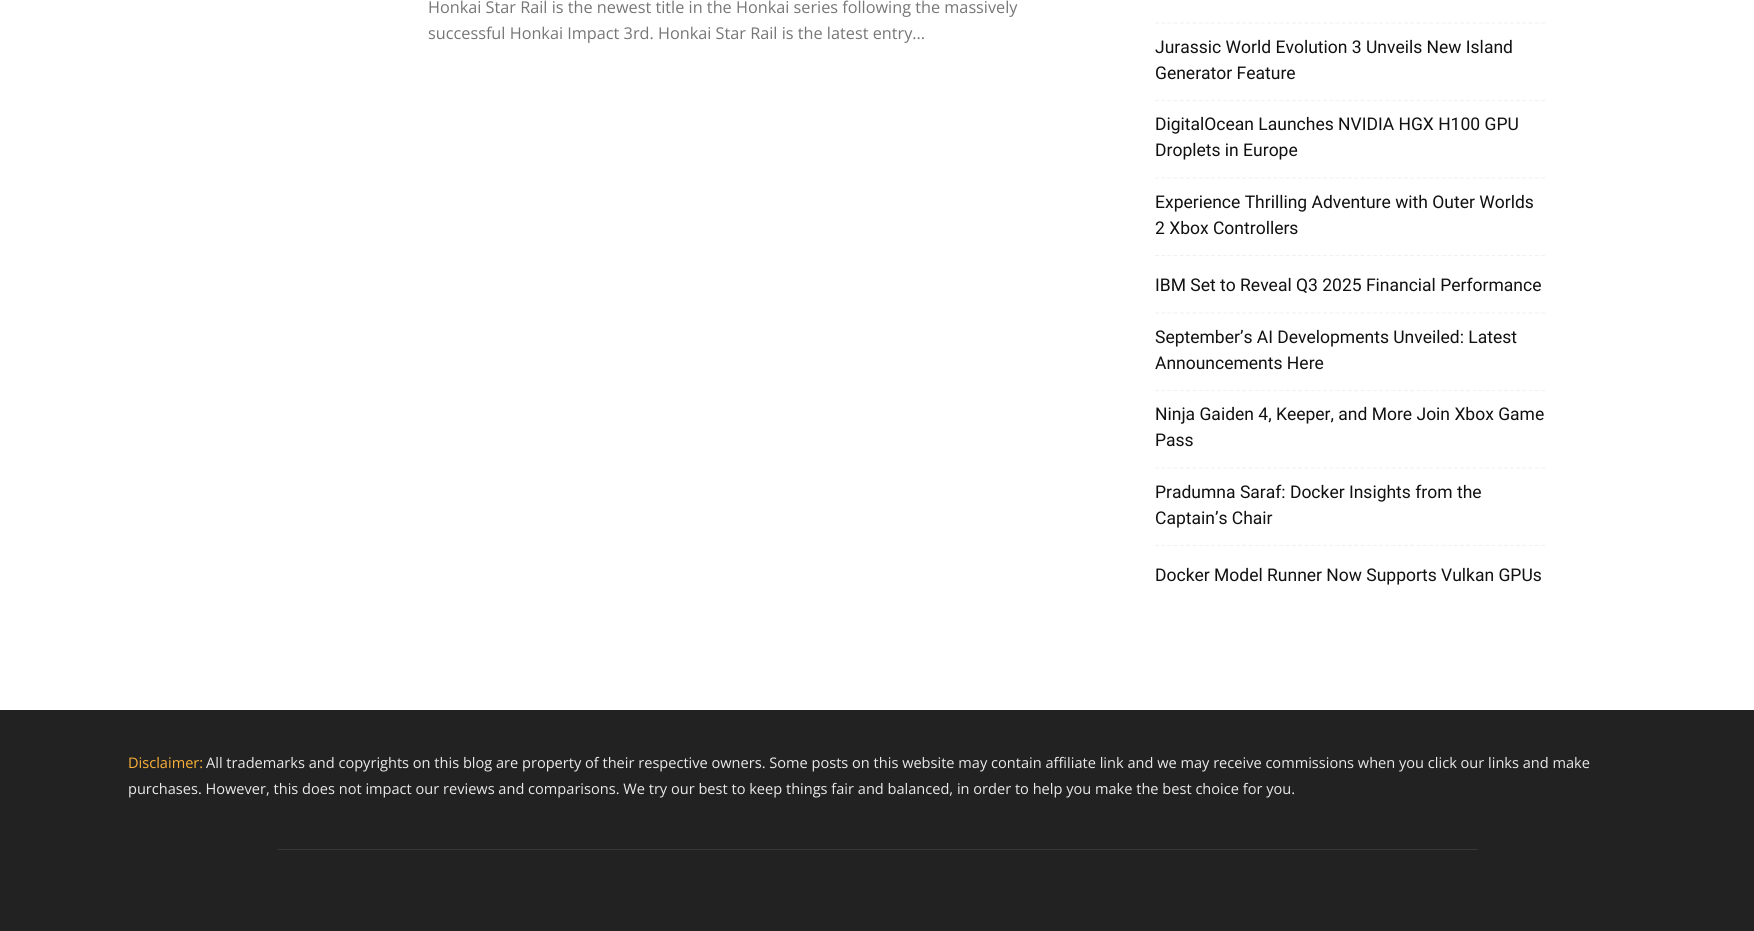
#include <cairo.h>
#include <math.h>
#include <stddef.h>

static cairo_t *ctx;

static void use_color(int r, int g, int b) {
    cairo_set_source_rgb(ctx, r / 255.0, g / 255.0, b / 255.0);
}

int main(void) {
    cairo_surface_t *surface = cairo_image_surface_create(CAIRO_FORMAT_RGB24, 1754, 931);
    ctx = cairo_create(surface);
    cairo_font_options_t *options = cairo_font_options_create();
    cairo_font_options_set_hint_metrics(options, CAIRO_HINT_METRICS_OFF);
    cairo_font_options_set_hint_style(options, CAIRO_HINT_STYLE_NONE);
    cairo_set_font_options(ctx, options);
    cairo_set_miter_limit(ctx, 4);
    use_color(255, 255, 255);
    cairo_paint(ctx);
    cairo_select_font_face(ctx, "Open Sans", CAIRO_FONT_SLANT_NORMAL, CAIRO_FONT_WEIGHT_NORMAL);
    cairo_set_font_size(ctx, 16.25);
    use_color(118, 118, 118);
    cairo_move_to(ctx, 428, 13);
    cairo_show_text(ctx, "Honkai Star Rail is the newest title in the Honkai series following the massively");
    cairo_move_to(ctx, 428, 39);
    cairo_show_text(ctx, "successful Honkai Impact 3rd. Honkai Star Rail is the latest entry...");
    cairo_new_path(ctx);
    cairo_move_to(ctx, 1155, 23);
    cairo_line_to(ctx, 1545, 23);
    use_color(241, 241, 241);
    cairo_set_line_width(ctx, 1.2);
    cairo_set_dash(ctx, (double[]){3.75, 2.48}, 2, 0);
    cairo_stroke(ctx);
    cairo_new_path(ctx);
    cairo_move_to(ctx, 1155, 100.5);
    cairo_line_to(ctx, 1545, 100.5);
    cairo_stroke(ctx);
    cairo_select_font_face(ctx, "Roboto", CAIRO_FONT_SLANT_NORMAL, CAIRO_FONT_WEIGHT_NORMAL);
    cairo_set_font_size(ctx, 17.5);
    use_color(17, 17, 17);
    cairo_move_to(ctx, 1155, 53);
    cairo_show_text(ctx, "Jurassic World Evolution 3 Unveils New Island");
    cairo_move_to(ctx, 1155, 79);
    cairo_show_text(ctx, "Generator Feature");
    cairo_new_path(ctx);
    cairo_move_to(ctx, 1155, 178);
    cairo_line_to(ctx, 1545, 178);
    use_color(241, 241, 241);
    cairo_stroke(ctx);
    use_color(17, 17, 17);
    cairo_move_to(ctx, 1155, 130);
    cairo_show_text(ctx, "DigitalOcean Launches NVIDIA HGX H100 GPU");
    cairo_move_to(ctx, 1155, 156);
    cairo_show_text(ctx, "Droplets in Europe");
    cairo_new_path(ctx);
    cairo_move_to(ctx, 1155, 255.5);
    cairo_line_to(ctx, 1545, 255.5);
    use_color(241, 241, 241);
    cairo_stroke(ctx);
    use_color(17, 17, 17);
    cairo_move_to(ctx, 1155, 208);
    cairo_show_text(ctx, "Experience Thrilling Adventure with Outer Worlds");
    cairo_move_to(ctx, 1155, 234);
    cairo_show_text(ctx, "2 Xbox Controllers");
    cairo_new_path(ctx);
    cairo_move_to(ctx, 1155, 313);
    cairo_line_to(ctx, 1545, 313);
    use_color(241, 241, 241);
    cairo_stroke(ctx);
    use_color(17, 17, 17);
    cairo_move_to(ctx, 1155, 291);
    cairo_show_text(ctx, "IBM Set to Reveal Q3 2025 Financial Performance");
    cairo_new_path(ctx);
    cairo_move_to(ctx, 1155, 390.5);
    cairo_line_to(ctx, 1545, 390.5);
    use_color(241, 241, 241);
    cairo_stroke(ctx);
    use_color(17, 17, 17);
    cairo_move_to(ctx, 1155, 343);
    cairo_show_text(ctx, "September’s AI Developments Unveiled: Latest");
    cairo_move_to(ctx, 1155, 369);
    cairo_show_text(ctx, "Announcements Here");
    cairo_new_path(ctx);
    cairo_move_to(ctx, 1155, 468);
    cairo_line_to(ctx, 1545, 468);
    use_color(241, 241, 241);
    cairo_stroke(ctx);
    use_color(17, 17, 17);
    cairo_move_to(ctx, 1155, 420);
    cairo_show_text(ctx, "Ninja Gaiden 4, Keeper, and More Join Xbox Game");
    cairo_move_to(ctx, 1155, 446);
    cairo_show_text(ctx, "Pass");
    cairo_new_path(ctx);
    cairo_move_to(ctx, 1155, 545.5);
    cairo_line_to(ctx, 1545, 545.5);
    use_color(241, 241, 241);
    cairo_stroke(ctx);
    use_color(17, 17, 17);
    cairo_move_to(ctx, 1155, 498);
    cairo_show_text(ctx, "Pradumna Saraf: Docker Insights from the");
    cairo_move_to(ctx, 1155, 524);
    cairo_show_text(ctx, "Captain’s Chair");
    cairo_move_to(ctx, 1155, 581);
    cairo_show_text(ctx, "Docker Model Runner Now Supports Vulkan GPUs");
    use_color(34, 34, 34);
    cairo_rectangle(ctx, 0, 710, 1754, 221);
    cairo_fill(ctx);
    cairo_select_font_face(ctx, "Open Sans", CAIRO_FONT_SLANT_NORMAL, CAIRO_FONT_WEIGHT_NORMAL);
    cairo_set_font_size(ctx, 14.58);
    use_color(251, 177, 56);
    cairo_move_to(ctx, 128, 768);
    cairo_show_text(ctx, "Disclaimer:");
    use_color(234, 234, 234);
    cairo_move_to(ctx, 206, 768);
    cairo_show_text(ctx, "All trademarks and copyrights on this blog are property of their respective owners. Some posts on this website may contain affiliate link and we may receive commissions when you click our links and make");
    cairo_move_to(ctx, 128, 794);
    cairo_show_text(ctx, "purchases. However, this does not impact our reviews and comparisons. We try our best to keep things fair and balanced, in order to help you make the best choice for you.");
    use_color(56, 56, 56);
    cairo_rectangle(ctx, 278, 849, 1200, 1);
    cairo_fill(ctx);
    cairo_surface_write_to_png(surface, "result.png");
    cairo_font_options_destroy(options);
    cairo_destroy(ctx);
    cairo_surface_destroy(surface);
    return 0;
}
